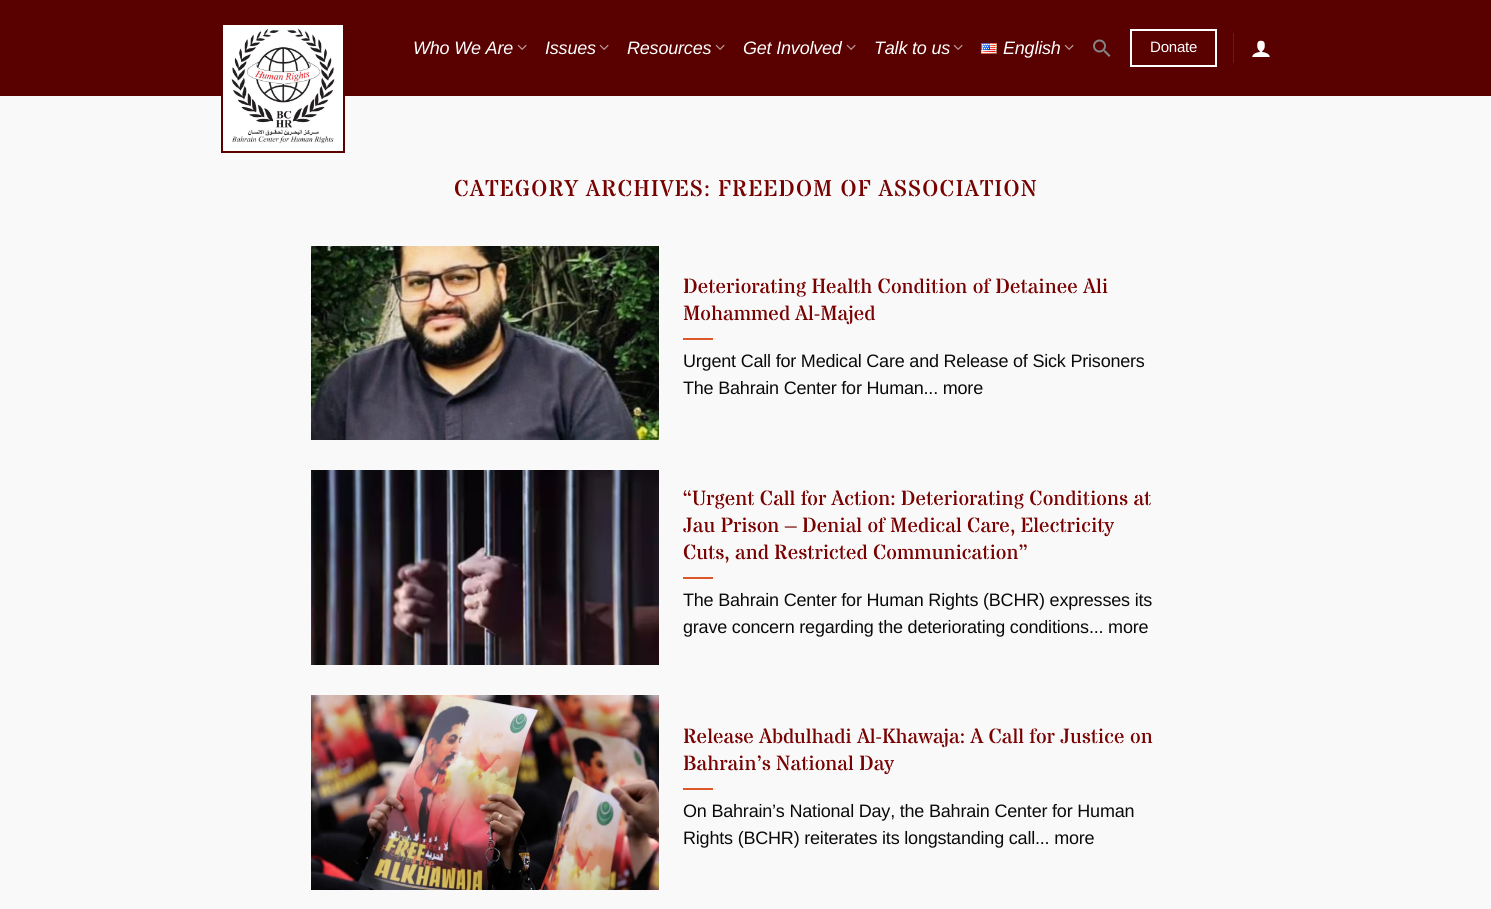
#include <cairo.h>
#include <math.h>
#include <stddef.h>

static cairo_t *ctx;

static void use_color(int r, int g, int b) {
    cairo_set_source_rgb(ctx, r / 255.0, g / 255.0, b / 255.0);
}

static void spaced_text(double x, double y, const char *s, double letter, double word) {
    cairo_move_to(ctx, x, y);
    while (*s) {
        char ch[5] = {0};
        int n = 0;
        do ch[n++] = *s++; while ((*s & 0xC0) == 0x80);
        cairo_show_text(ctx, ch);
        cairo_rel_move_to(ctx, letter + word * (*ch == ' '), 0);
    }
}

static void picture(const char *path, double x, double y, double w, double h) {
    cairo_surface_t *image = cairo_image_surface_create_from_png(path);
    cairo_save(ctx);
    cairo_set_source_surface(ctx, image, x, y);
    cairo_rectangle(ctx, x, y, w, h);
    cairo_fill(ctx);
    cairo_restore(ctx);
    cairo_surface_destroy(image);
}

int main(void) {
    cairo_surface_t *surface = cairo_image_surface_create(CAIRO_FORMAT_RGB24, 1491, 909);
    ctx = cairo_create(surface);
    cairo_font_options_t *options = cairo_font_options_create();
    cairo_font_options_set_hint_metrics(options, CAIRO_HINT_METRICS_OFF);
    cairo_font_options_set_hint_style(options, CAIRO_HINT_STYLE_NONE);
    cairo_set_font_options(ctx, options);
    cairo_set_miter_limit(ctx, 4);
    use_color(249, 249, 249);
    cairo_paint(ctx);
    use_color(89, 0, 0);
    cairo_rectangle(ctx, 0, 0, 1491, 96);
    cairo_fill(ctx);
    use_color(255, 255, 255);
    cairo_rectangle(ctx, 222, 24, 122, 128);
    cairo_fill_preserve(ctx);
    use_color(89, 0, 0);
    cairo_stroke(ctx);
    picture("img1.png", 231, 28, 104, 116);
    cairo_select_font_face(ctx, "Liberation Sans", CAIRO_FONT_SLANT_ITALIC, CAIRO_FONT_WEIGHT_NORMAL);
    cairo_set_font_size(ctx, 18);
    use_color(255, 255, 255);
    spaced_text(413, 54, "Who We Are", -0.2, 0);
    picture("img2.png", 517, 44, 10, 6);
    spaced_text(545, 54, "Issues", -0.2, 0);
    picture("img2.png", 599, 44, 10, 6);
    spaced_text(627, 54, "Resources", -0.2, 0);
    picture("img2.png", 715, 44, 10, 6);
    spaced_text(743, 54, "Get Involved", -0.2, 0);
    picture("img2.png", 846, 44, 10, 6);
    spaced_text(874, 54, "Talk to us", -0.2, 0);
    picture("img2.png", 953, 44, 10, 6);
    picture("img3.png", 981, 43, 16, 11);
    spaced_text(1003, 54, "English", -0.2, 0);
    picture("img2.png", 1064, 44, 10, 6);
    picture("img4.png", 1093, 39, 18, 18);
    cairo_rectangle(ctx, 1131, 30, 85, 36);
    cairo_stroke(ctx);
    cairo_select_font_face(ctx, "Liberation Sans", CAIRO_FONT_SLANT_NORMAL, CAIRO_FONT_WEIGHT_NORMAL);
    cairo_set_font_size(ctx, 15);
    spaced_text(1150, 52, "Donate", -0.2, 0);
    use_color(106, 26, 26);
    cairo_rectangle(ctx, 1233, 33, 1, 30);
    cairo_fill(ctx);
    picture("img5.png", 1252, 40, 18, 17);
    cairo_select_font_face(ctx, "Stardos Stencil", CAIRO_FONT_SLANT_NORMAL, CAIRO_FONT_WEIGHT_NORMAL);
    cairo_set_font_size(ctx, 22.95);
    use_color(120, 1, 1);
    spaced_text(454, 196, "CATEGORY ARCHIVES: FREEDOM OF ASSOCIATION", 1.15, 0);
    picture("img6.png", 311, 246, 348, 194);
    cairo_set_font_size(ctx, 20.7);
    cairo_move_to(ctx, 683, 293);
    cairo_show_text(ctx, "Deteriorating Health Condition of Detainee Ali");
    cairo_move_to(ctx, 683, 320);
    cairo_show_text(ctx, "Mohammed Al-Majed");
    use_color(220, 88, 40);
    cairo_rectangle(ctx, 683, 338, 30, 2);
    cairo_fill(ctx);
    cairo_select_font_face(ctx, "Liberation Sans", CAIRO_FONT_SLANT_NORMAL, CAIRO_FONT_WEIGHT_NORMAL);
    cairo_set_font_size(ctx, 18);
    use_color(10, 10, 10);
    spaced_text(683, 367, "Urgent Call for Medical Care and Release of Sick Prisoners", -0.2, 0);
    spaced_text(683, 394, "The Bahrain Center for Human... more", -0.2, 0);
    picture("img7.png", 311, 470, 348, 195);
    cairo_select_font_face(ctx, "Stardos Stencil", CAIRO_FONT_SLANT_NORMAL, CAIRO_FONT_WEIGHT_NORMAL);
    cairo_set_font_size(ctx, 20.7);
    use_color(120, 1, 1);
    cairo_move_to(ctx, 683, 505);
    cairo_show_text(ctx, "“Urgent Call for Action: Deteriorating Conditions at");
    cairo_move_to(ctx, 683, 532);
    cairo_show_text(ctx, "Jau Prison – Denial of Medical Care, Electricity");
    cairo_move_to(ctx, 683, 559);
    cairo_show_text(ctx, "Cuts, and Restricted Communication”");
    use_color(220, 88, 40);
    cairo_rectangle(ctx, 683, 577, 30, 2);
    cairo_fill(ctx);
    cairo_select_font_face(ctx, "Liberation Sans", CAIRO_FONT_SLANT_NORMAL, CAIRO_FONT_WEIGHT_NORMAL);
    cairo_set_font_size(ctx, 18);
    use_color(10, 10, 10);
    spaced_text(683, 606, "The Bahrain Center for Human Rights (BCHR) expresses its", -0.2, 0);
    spaced_text(683, 633, "grave concern regarding the deteriorating conditions... more", -0.2, 0);
    picture("img8.png", 311, 695, 348, 195);
    cairo_select_font_face(ctx, "Stardos Stencil", CAIRO_FONT_SLANT_NORMAL, CAIRO_FONT_WEIGHT_NORMAL);
    cairo_set_font_size(ctx, 20.7);
    use_color(120, 1, 1);
    cairo_move_to(ctx, 683, 743);
    cairo_show_text(ctx, "Release Abdulhadi Al-Khawaja: A Call for Justice on");
    cairo_move_to(ctx, 683, 770);
    cairo_show_text(ctx, "Bahrain’s National Day");
    use_color(220, 88, 40);
    cairo_rectangle(ctx, 683, 788, 30, 2);
    cairo_fill(ctx);
    cairo_select_font_face(ctx, "Liberation Sans", CAIRO_FONT_SLANT_NORMAL, CAIRO_FONT_WEIGHT_NORMAL);
    cairo_set_font_size(ctx, 18);
    use_color(10, 10, 10);
    spaced_text(683, 817, "On Bahrain’s National Day, the Bahrain Center for Human", -0.2, 0);
    spaced_text(683, 844, "Rights (BCHR) reiterates its longstanding call... more", -0.2, 0);
    cairo_surface_write_to_png(surface, "result.png");
    cairo_font_options_destroy(options);
    cairo_destroy(ctx);
    cairo_surface_destroy(surface);
    return 0;
}
